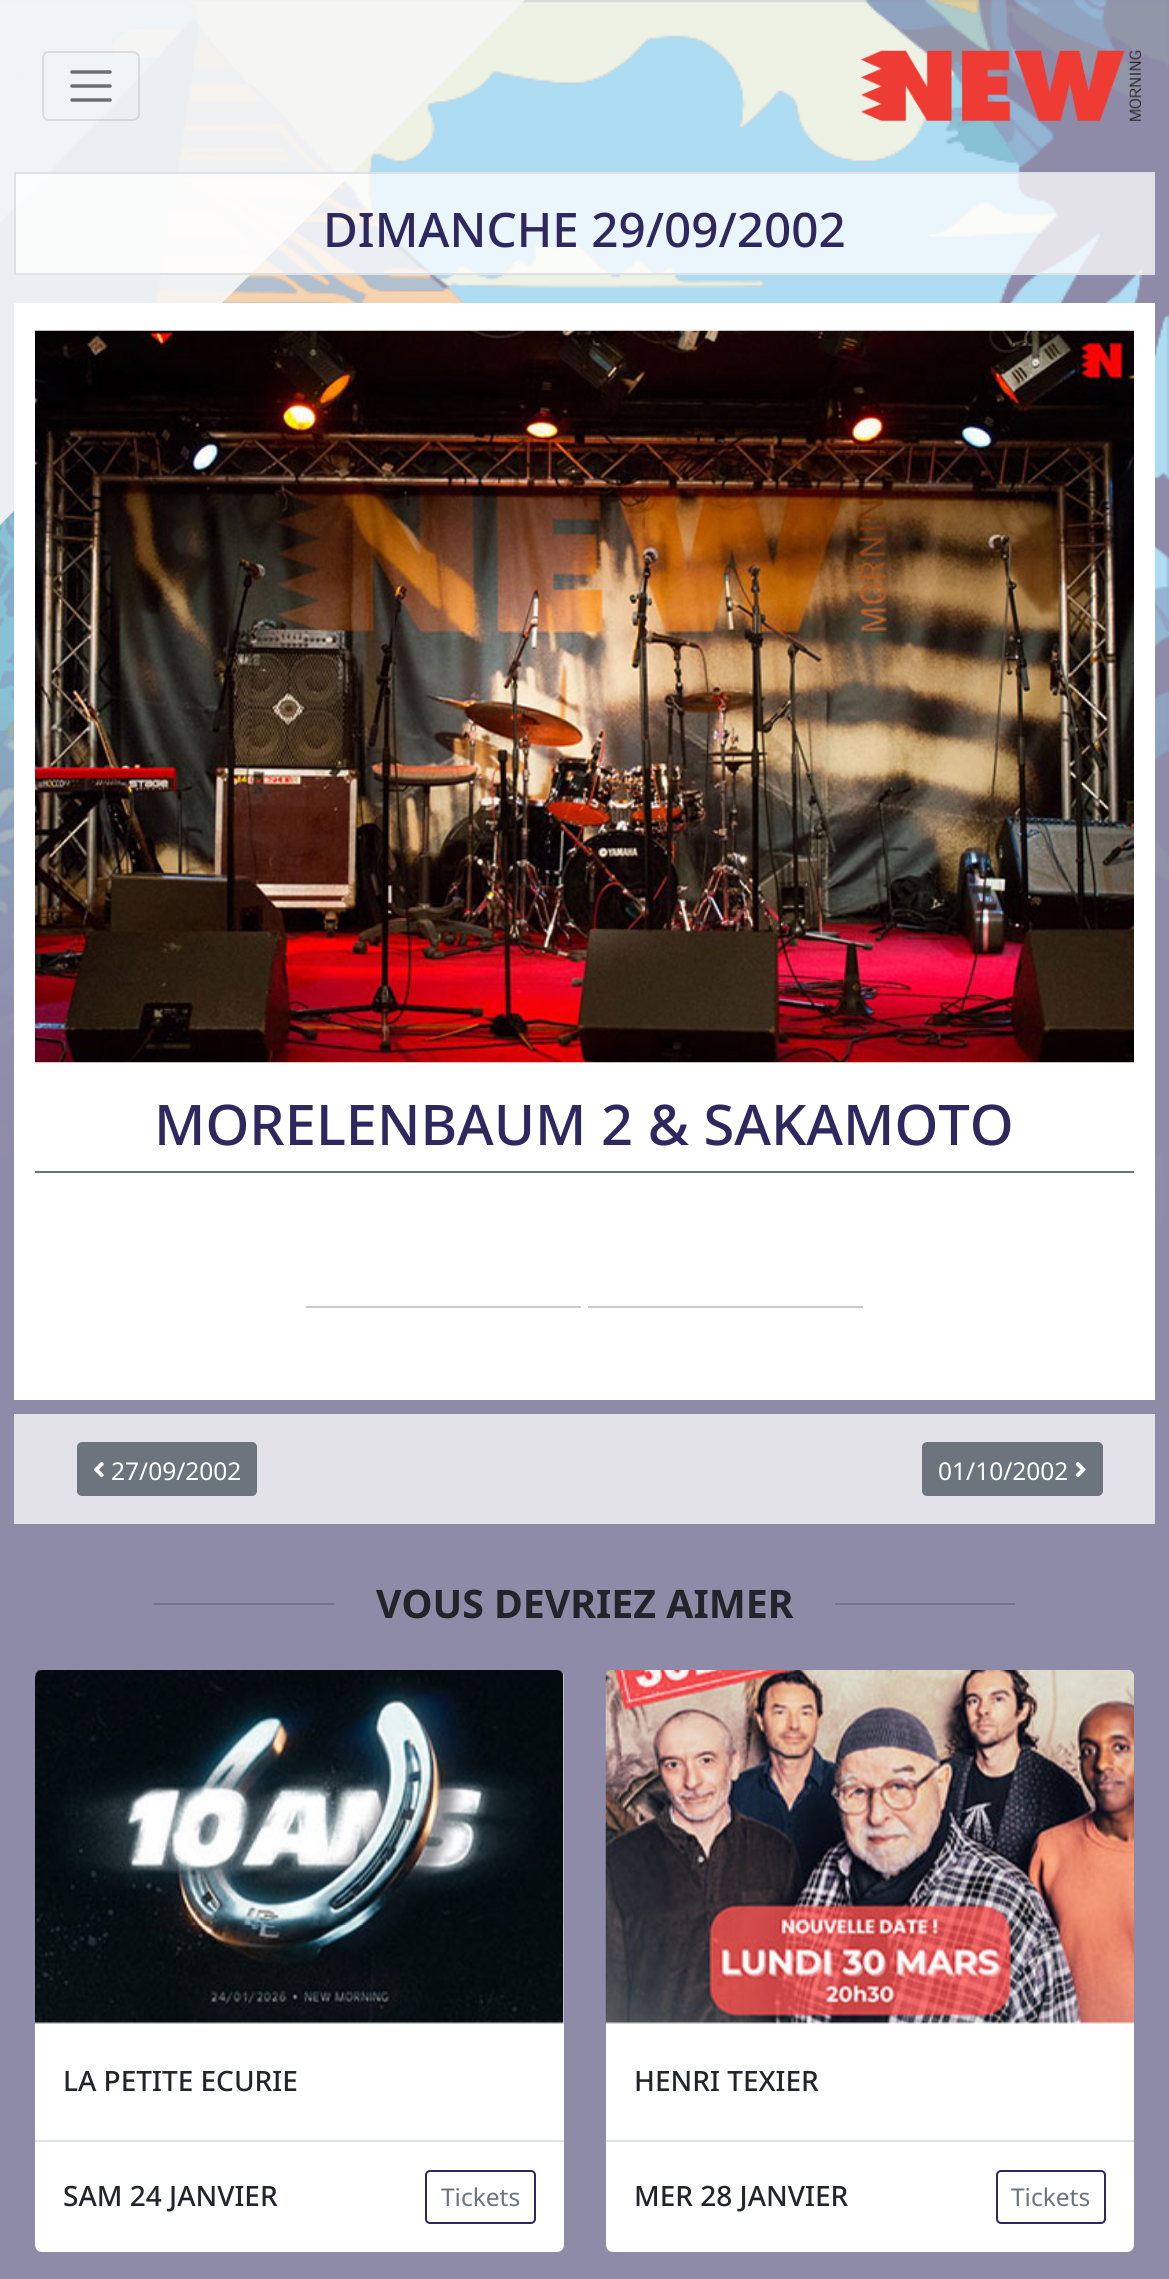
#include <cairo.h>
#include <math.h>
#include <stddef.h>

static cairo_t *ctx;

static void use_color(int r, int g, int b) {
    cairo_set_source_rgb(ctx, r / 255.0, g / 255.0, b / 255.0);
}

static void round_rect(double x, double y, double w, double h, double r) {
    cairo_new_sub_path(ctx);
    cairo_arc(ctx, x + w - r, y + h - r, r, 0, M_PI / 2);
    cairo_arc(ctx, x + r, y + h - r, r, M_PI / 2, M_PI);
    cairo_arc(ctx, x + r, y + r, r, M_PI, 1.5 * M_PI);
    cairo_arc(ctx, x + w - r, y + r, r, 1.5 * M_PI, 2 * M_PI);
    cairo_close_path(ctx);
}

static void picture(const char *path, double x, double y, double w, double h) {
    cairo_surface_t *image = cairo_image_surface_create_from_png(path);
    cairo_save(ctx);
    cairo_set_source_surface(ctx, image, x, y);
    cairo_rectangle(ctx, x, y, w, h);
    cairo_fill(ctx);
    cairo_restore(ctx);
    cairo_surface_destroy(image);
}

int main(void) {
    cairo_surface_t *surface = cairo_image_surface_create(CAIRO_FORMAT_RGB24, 1169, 2279);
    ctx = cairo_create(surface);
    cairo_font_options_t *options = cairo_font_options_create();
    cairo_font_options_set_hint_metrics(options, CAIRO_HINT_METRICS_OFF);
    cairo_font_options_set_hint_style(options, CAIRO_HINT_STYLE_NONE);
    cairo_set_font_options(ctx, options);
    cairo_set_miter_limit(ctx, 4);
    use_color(255, 255, 255);
    cairo_paint(ctx);
    picture("img1.png", 0, 0, 1169, 2279);
    cairo_set_source_rgba(ctx, 0.965, 0.965, 0.965, 0.9);
    cairo_new_path(ctx);
    cairo_move_to(ctx, 0, 0);
    cairo_line_to(ctx, 525, 0);
    cairo_line_to(ctx, 0, 525);
    cairo_close_path(ctx);
    cairo_fill(ctx);
    round_rect(43, 52, 96, 68, 6);
    cairo_set_source_rgba(ctx, 0, 0, 0, 0.1);
    cairo_stroke(ctx);
    cairo_new_path(ctx);
    cairo_move_to(ctx, 72, 72);
    cairo_line_to(ctx, 110, 72);
    cairo_move_to(ctx, 72, 86);
    cairo_line_to(ctx, 110, 86);
    cairo_move_to(ctx, 72, 100);
    cairo_line_to(ctx, 110, 100);
    use_color(107, 110, 111);
    cairo_set_line_width(ctx, 3.5);
    cairo_set_line_cap(ctx, CAIRO_LINE_CAP_ROUND);
    cairo_stroke(ctx);
    picture("img2.png", 861, 50, 280, 71);
    cairo_set_source_rgba(ctx, 1, 1, 1, 0.75);
    cairo_rectangle(ctx, 15, 173, 1139, 101);
    cairo_fill_preserve(ctx);
    use_color(222, 226, 230);
    cairo_set_line_width(ctx, 2);
    cairo_set_line_cap(ctx, CAIRO_LINE_CAP_BUTT);
    cairo_stroke(ctx);
    cairo_select_font_face(ctx, "Noto Sans Medium", CAIRO_FONT_SLANT_NORMAL, CAIRO_FONT_WEIGHT_NORMAL);
    cairo_set_font_size(ctx, 47.6);
    use_color(46, 40, 94);
    cairo_move_to(ctx, 323, 247);
    cairo_show_text(ctx, "DIMANCHE 29/09/2002");
    use_color(255, 255, 255);
    cairo_rectangle(ctx, 14, 303, 1141, 1097);
    cairo_fill(ctx);
    picture("img3.png", 35, 330, 1099, 733);
    cairo_set_font_size(ctx, 56);
    use_color(46, 40, 94);
    cairo_move_to(ctx, 154, 1145);
    cairo_show_text(ctx, "MORELENBAUM 2 & SAKAMOTO");
    use_color(108, 117, 125);
    cairo_rectangle(ctx, 35, 1171, 1099, 2);
    cairo_fill(ctx);
    use_color(200, 201, 202);
    cairo_rectangle(ctx, 306, 1306, 275, 2);
    cairo_fill(ctx);
    cairo_rectangle(ctx, 588, 1306, 275, 2);
    cairo_fill(ctx);
    use_color(227, 226, 233);
    cairo_rectangle(ctx, 14, 1414, 1141, 110);
    cairo_fill(ctx);
    use_color(108, 117, 125);
    round_rect(78, 1443, 178, 52, 4);
    cairo_fill_preserve(ctx);
    cairo_stroke(ctx);
    picture("img4.png", 94, 1461, 10, 17);
    cairo_select_font_face(ctx, "Noto Sans", CAIRO_FONT_SLANT_NORMAL, CAIRO_FONT_WEIGHT_NORMAL);
    cairo_set_font_size(ctx, 24.5);
    use_color(255, 255, 255);
    cairo_move_to(ctx, 111, 1480);
    cairo_show_text(ctx, "27/09/2002");
    use_color(108, 117, 125);
    round_rect(923, 1443, 179, 52, 4);
    cairo_fill_preserve(ctx);
    cairo_stroke(ctx);
    use_color(255, 255, 255);
    cairo_move_to(ctx, 938, 1480);
    cairo_show_text(ctx, "01/10/2002");
    picture("img5.png", 1075, 1461, 11, 17);
    use_color(115, 114, 136);
    cairo_rectangle(ctx, 154, 1603, 180, 2);
    cairo_fill(ctx);
    cairo_select_font_face(ctx, "Noto Sans", CAIRO_FONT_SLANT_NORMAL, CAIRO_FONT_WEIGHT_BOLD);
    cairo_set_font_size(ctx, 39.25);
    use_color(33, 37, 41);
    cairo_move_to(ctx, 376, 1618);
    cairo_show_text(ctx, "VOUS DEVRIEZ AIMER");
    use_color(115, 114, 136);
    cairo_rectangle(ctx, 835, 1603, 180, 2);
    cairo_fill(ctx);
    use_color(255, 255, 255);
    round_rect(35, 1670, 529, 582, 7);
    cairo_fill(ctx);
    picture("img6.png", 35, 1670, 529, 354);
    cairo_select_font_face(ctx, "Noto Sans Medium", CAIRO_FONT_SLANT_NORMAL, CAIRO_FONT_WEIGHT_NORMAL);
    cairo_set_font_size(ctx, 28);
    use_color(33, 37, 41);
    cairo_move_to(ctx, 63, 2091);
    cairo_show_text(ctx, "LA PETITE ECURIE");
    use_color(222, 226, 230);
    cairo_rectangle(ctx, 35, 2140, 529, 2);
    cairo_fill(ctx);
    use_color(33, 37, 41);
    cairo_move_to(ctx, 63, 2206);
    cairo_show_text(ctx, "SAM 24 JANVIER");
    round_rect(426, 2171, 109, 52, 4);
    use_color(46, 40, 94);
    cairo_stroke(ctx);
    cairo_select_font_face(ctx, "Noto Sans", CAIRO_FONT_SLANT_NORMAL, CAIRO_FONT_WEIGHT_NORMAL);
    cairo_set_font_size(ctx, 24.5);
    use_color(108, 117, 125);
    cairo_move_to(ctx, 441, 2206);
    cairo_show_text(ctx, "Tickets");
    use_color(255, 255, 255);
    round_rect(606, 1670, 528, 582, 7);
    cairo_fill(ctx);
    picture("img7.png", 605, 1670, 529, 354);
    cairo_select_font_face(ctx, "Noto Sans Medium", CAIRO_FONT_SLANT_NORMAL, CAIRO_FONT_WEIGHT_NORMAL);
    cairo_set_font_size(ctx, 28);
    use_color(33, 37, 41);
    cairo_move_to(ctx, 634, 2091);
    cairo_show_text(ctx, "HENRI TEXIER");
    use_color(222, 226, 230);
    cairo_rectangle(ctx, 606, 2140, 528, 2);
    cairo_fill(ctx);
    use_color(33, 37, 41);
    cairo_move_to(ctx, 634, 2206);
    cairo_show_text(ctx, "MER 28 JANVIER");
    round_rect(997, 2171, 108, 52, 4);
    use_color(46, 40, 94);
    cairo_stroke(ctx);
    cairo_select_font_face(ctx, "Noto Sans", CAIRO_FONT_SLANT_NORMAL, CAIRO_FONT_WEIGHT_NORMAL);
    cairo_set_font_size(ctx, 24.5);
    use_color(108, 117, 125);
    cairo_move_to(ctx, 1011, 2206);
    cairo_show_text(ctx, "Tickets");
    cairo_surface_write_to_png(surface, "result.png");
    cairo_font_options_destroy(options);
    cairo_destroy(ctx);
    cairo_surface_destroy(surface);
    return 0;
}
